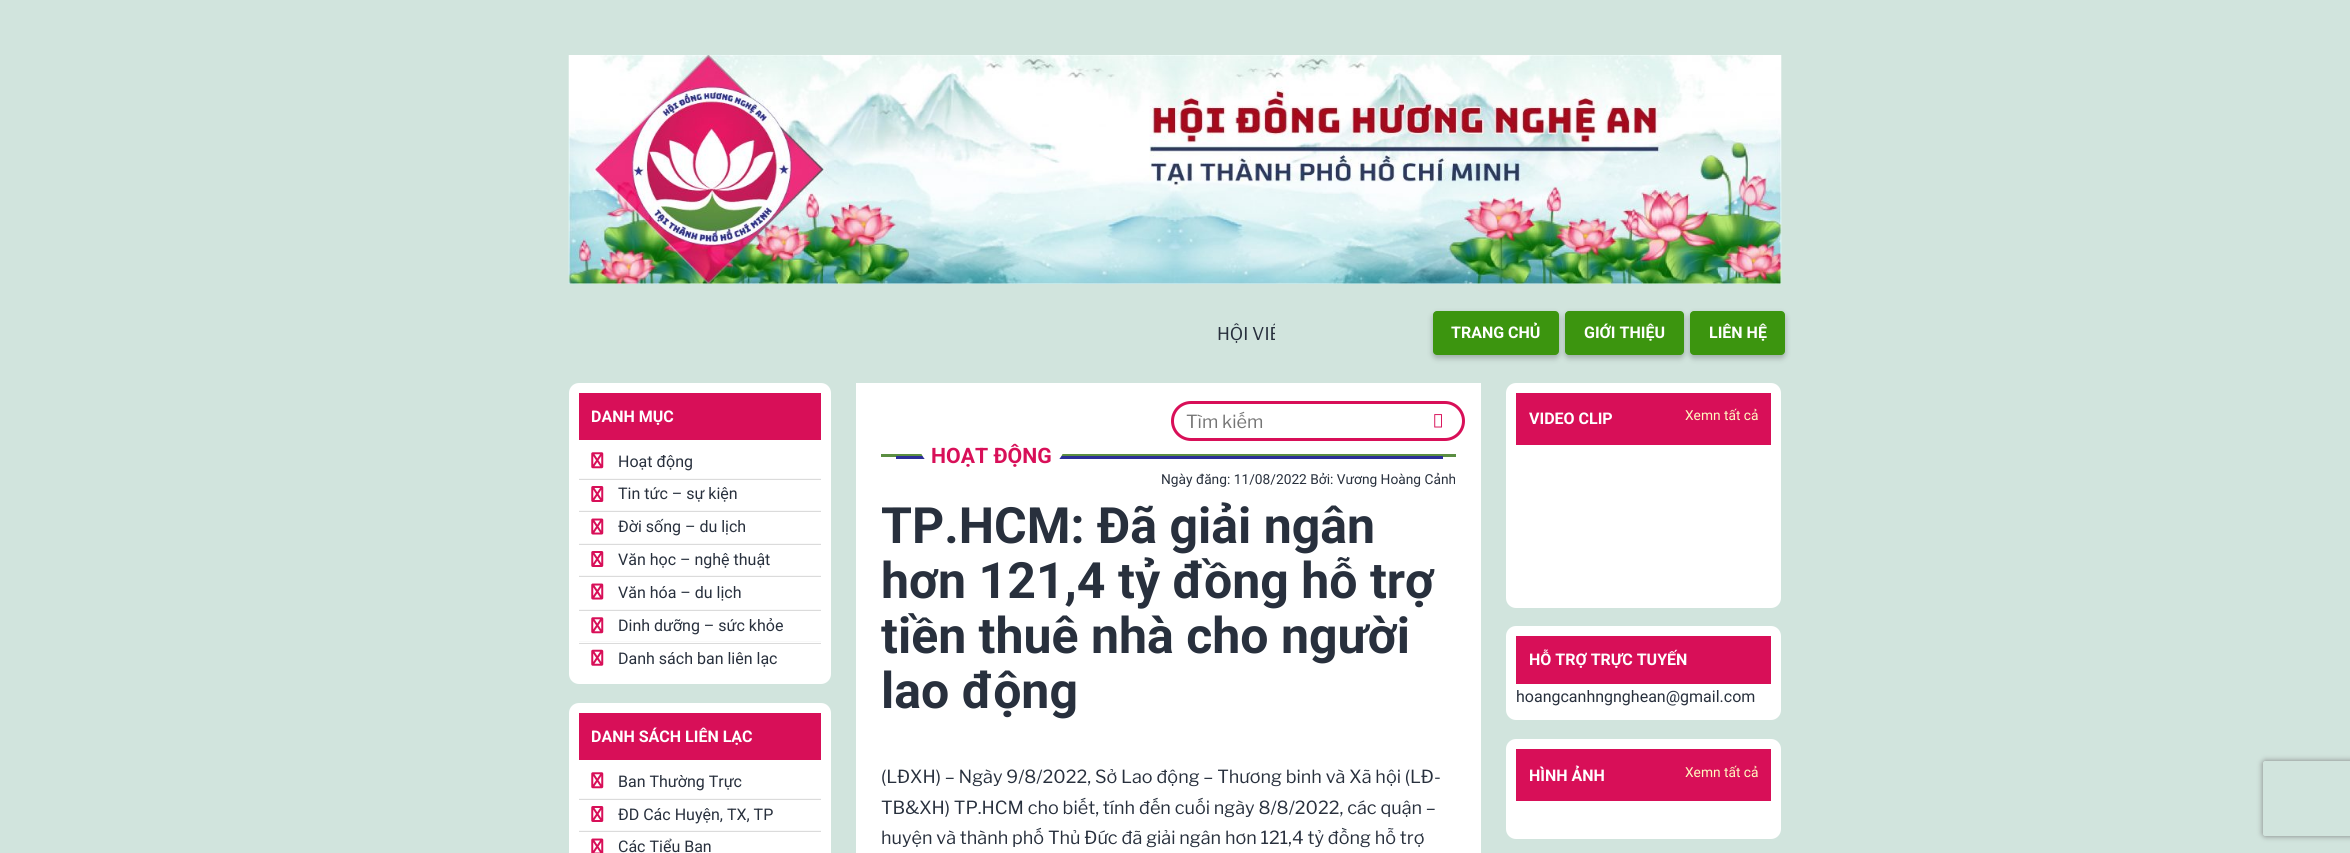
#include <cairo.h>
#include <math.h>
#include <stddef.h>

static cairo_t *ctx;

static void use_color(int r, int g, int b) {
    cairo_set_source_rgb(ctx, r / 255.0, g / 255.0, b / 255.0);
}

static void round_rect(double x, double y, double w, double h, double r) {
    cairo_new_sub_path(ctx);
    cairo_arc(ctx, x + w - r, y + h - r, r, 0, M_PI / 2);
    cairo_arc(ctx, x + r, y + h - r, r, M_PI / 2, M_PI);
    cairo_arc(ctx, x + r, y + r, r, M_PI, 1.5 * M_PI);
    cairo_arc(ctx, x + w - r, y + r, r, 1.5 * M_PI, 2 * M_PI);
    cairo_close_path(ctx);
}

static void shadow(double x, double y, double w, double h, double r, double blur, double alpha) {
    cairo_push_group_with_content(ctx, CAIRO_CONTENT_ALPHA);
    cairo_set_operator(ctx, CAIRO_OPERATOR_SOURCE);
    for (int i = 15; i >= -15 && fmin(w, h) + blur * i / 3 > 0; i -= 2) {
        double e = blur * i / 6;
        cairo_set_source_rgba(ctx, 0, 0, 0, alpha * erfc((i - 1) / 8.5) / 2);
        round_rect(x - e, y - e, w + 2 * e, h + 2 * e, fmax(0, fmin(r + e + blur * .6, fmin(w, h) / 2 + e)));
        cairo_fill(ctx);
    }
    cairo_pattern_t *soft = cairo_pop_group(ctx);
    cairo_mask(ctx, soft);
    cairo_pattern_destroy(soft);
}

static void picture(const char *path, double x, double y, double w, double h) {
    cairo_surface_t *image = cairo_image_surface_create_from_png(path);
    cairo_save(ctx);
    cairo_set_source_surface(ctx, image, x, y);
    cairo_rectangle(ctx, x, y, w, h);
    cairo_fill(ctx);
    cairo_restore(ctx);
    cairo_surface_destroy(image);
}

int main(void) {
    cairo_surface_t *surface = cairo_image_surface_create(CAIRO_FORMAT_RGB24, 2350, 853);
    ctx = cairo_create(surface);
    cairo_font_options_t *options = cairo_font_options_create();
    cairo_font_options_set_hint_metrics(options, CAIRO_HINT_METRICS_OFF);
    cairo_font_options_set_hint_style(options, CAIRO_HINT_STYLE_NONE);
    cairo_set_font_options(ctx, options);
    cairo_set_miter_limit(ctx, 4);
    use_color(209, 228, 221);
    cairo_paint(ctx);
    picture("img1.png", 568, 55, 1214, 229);
    cairo_save(ctx);
    cairo_rectangle(ctx, 569, 319, 706, 25);
    cairo_clip(ctx);
    cairo_select_font_face(ctx, "Libre Franklin", CAIRO_FONT_SLANT_NORMAL, CAIRO_FONT_WEIGHT_NORMAL);
    cairo_set_font_size(ctx, 17.5);
    use_color(40, 48, 61);
    cairo_move_to(ctx, 1217, 340);
    cairo_show_text(ctx, "HỘI VIÊ");
    cairo_restore(ctx);
    use_color(0, 0, 0);
    shadow(1433, 314, 126, 44, 4, 3, 0.25);
    use_color(60, 149, 15);
    round_rect(1433, 311, 126, 44, 4);
    cairo_fill(ctx);
    cairo_select_font_face(ctx, "Roboto", CAIRO_FONT_SLANT_NORMAL, CAIRO_FONT_WEIGHT_BOLD);
    cairo_set_font_size(ctx, 16);
    use_color(255, 255, 255);
    cairo_move_to(ctx, 1451, 338);
    cairo_show_text(ctx, "TRANG CHỦ");
    use_color(0, 0, 0);
    shadow(1565, 314, 119, 44, 4, 3, 0.25);
    use_color(60, 149, 15);
    round_rect(1565, 311, 119, 44, 4);
    cairo_fill(ctx);
    use_color(255, 255, 255);
    cairo_move_to(ctx, 1584, 338);
    cairo_show_text(ctx, "GIỚI THIỆU");
    use_color(0, 0, 0);
    shadow(1690, 314, 95, 44, 4, 3, 0.25);
    use_color(60, 149, 15);
    round_rect(1690, 311, 95, 44, 4);
    cairo_fill(ctx);
    use_color(255, 255, 255);
    cairo_move_to(ctx, 1709, 338);
    cairo_show_text(ctx, "LIÊN HỆ");
    round_rect(569, 383, 262, 301, 10);
    cairo_fill(ctx);
    use_color(216, 15, 88);
    cairo_rectangle(ctx, 579, 393, 242, 47);
    cairo_fill(ctx);
    use_color(255, 255, 255);
    cairo_move_to(ctx, 591, 422);
    cairo_show_text(ctx, "DANH MỤC");
    use_color(249, 249, 249);
    cairo_rectangle(ctx, 579, 478, 242, 1);
    cairo_fill(ctx);
    picture("img2.png", 591, 452, 13, 17);
    cairo_select_font_face(ctx, "Roboto", CAIRO_FONT_SLANT_NORMAL, CAIRO_FONT_WEIGHT_NORMAL);
    use_color(40, 48, 61);
    cairo_move_to(ctx, 618, 467);
    cairo_show_text(ctx, "Hoạt động");
    use_color(219, 219, 219);
    cairo_rectangle(ctx, 579, 479, 242, 1);
    cairo_fill(ctx);
    use_color(249, 249, 249);
    cairo_rectangle(ctx, 579, 510, 242, 1);
    cairo_fill(ctx);
    picture("img3.png", 591, 486, 13, 16);
    use_color(40, 48, 61);
    cairo_move_to(ctx, 618, 499);
    cairo_show_text(ctx, "Tin tức – sự kiện");
    use_color(219, 219, 219);
    cairo_rectangle(ctx, 579, 511, 242, 1);
    cairo_fill(ctx);
    use_color(249, 249, 249);
    cairo_rectangle(ctx, 579, 543, 242, 1);
    cairo_fill(ctx);
    picture("img4.png", 591, 518, 13, 17);
    use_color(40, 48, 61);
    cairo_move_to(ctx, 618, 532);
    cairo_show_text(ctx, "Đời sống – du lịch");
    use_color(219, 219, 219);
    cairo_rectangle(ctx, 579, 544, 242, 1);
    cairo_fill(ctx);
    use_color(249, 249, 249);
    cairo_rectangle(ctx, 579, 575, 242, 1);
    cairo_fill(ctx);
    picture("img3.png", 591, 551, 13, 16);
    use_color(40, 48, 61);
    cairo_move_to(ctx, 618, 565);
    cairo_show_text(ctx, "Văn học – nghệ thuật");
    use_color(219, 219, 219);
    cairo_rectangle(ctx, 579, 576, 242, 1);
    cairo_fill(ctx);
    use_color(249, 249, 249);
    cairo_rectangle(ctx, 579, 609, 242, 1);
    cairo_fill(ctx);
    picture("img4.png", 591, 583, 13, 17);
    use_color(40, 48, 61);
    cairo_move_to(ctx, 618, 598);
    cairo_show_text(ctx, "Văn hóa – du lịch");
    use_color(219, 219, 219);
    cairo_rectangle(ctx, 579, 610, 242, 1);
    cairo_fill(ctx);
    use_color(249, 249, 249);
    cairo_rectangle(ctx, 579, 641, 242, 1);
    cairo_fill(ctx);
    picture("img2.png", 591, 617, 13, 17);
    use_color(40, 48, 61);
    cairo_move_to(ctx, 618, 631);
    cairo_show_text(ctx, "Dinh dưỡng – sức khỏe");
    use_color(219, 219, 219);
    cairo_rectangle(ctx, 579, 643, 242, 1);
    cairo_fill(ctx);
    picture("img5.png", 591, 649, 13, 17);
    use_color(40, 48, 61);
    cairo_move_to(ctx, 618, 664);
    cairo_show_text(ctx, "Danh sách ban liên lạc");
    use_color(255, 255, 255);
    round_rect(569, 703, 262, 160, 10);
    cairo_fill(ctx);
    use_color(216, 15, 88);
    cairo_rectangle(ctx, 579, 713, 242, 47);
    cairo_fill(ctx);
    cairo_select_font_face(ctx, "Roboto", CAIRO_FONT_SLANT_NORMAL, CAIRO_FONT_WEIGHT_BOLD);
    use_color(255, 255, 255);
    cairo_move_to(ctx, 591, 742);
    cairo_show_text(ctx, "DANH SÁCH LIÊN LẠC");
    use_color(249, 249, 249);
    cairo_rectangle(ctx, 579, 798, 242, 1);
    cairo_fill(ctx);
    picture("img2.png", 591, 772, 13, 17);
    cairo_select_font_face(ctx, "Roboto", CAIRO_FONT_SLANT_NORMAL, CAIRO_FONT_WEIGHT_NORMAL);
    use_color(40, 48, 61);
    cairo_move_to(ctx, 618, 787);
    cairo_show_text(ctx, "Ban Thường Trực");
    use_color(219, 219, 219);
    cairo_rectangle(ctx, 579, 799, 242, 1);
    cairo_fill(ctx);
    use_color(249, 249, 249);
    cairo_rectangle(ctx, 579, 830, 242, 1);
    cairo_fill(ctx);
    picture("img3.png", 591, 806, 13, 16);
    use_color(40, 48, 61);
    cairo_move_to(ctx, 618, 820);
    cairo_show_text(ctx, "ĐD Các Huyện, TX, TP");
    use_color(219, 219, 219);
    cairo_rectangle(ctx, 579, 831, 242, 1);
    cairo_fill(ctx);
    picture("img6.png", 591, 838, 13, 15);
    use_color(40, 48, 61);
    cairo_move_to(ctx, 618, 852);
    cairo_show_text(ctx, "Các Tiểu Ban");
    use_color(255, 255, 255);
    cairo_rectangle(ctx, 856, 383, 625, 470);
    cairo_fill(ctx);
    round_rect(1172.5, 402.5, 291, 37, 18.5);
    use_color(216, 15, 88);
    cairo_set_line_width(ctx, 3);
    cairo_stroke(ctx);
    cairo_select_font_face(ctx, "Libre Franklin", CAIRO_FONT_SLANT_NORMAL, CAIRO_FONT_WEIGHT_NORMAL);
    cairo_set_font_size(ctx, 18);
    use_color(117, 117, 117);
    cairo_move_to(ctx, 1186, 428);
    cairo_show_text(ctx, "Tìm kiếm");
    picture("img7.png", 1434, 414, 8, 14);
    use_color(91, 142, 66);
    cairo_rectangle(ctx, 881, 454, 575, 3);
    cairo_fill(ctx);
    use_color(44, 47, 152);
    cairo_rectangle(ctx, 896, 456, 547, 3);
    cairo_fill(ctx);
    use_color(255, 255, 255);
    cairo_new_path(ctx);
    cairo_move_to(ctx, 919, 443);
    cairo_line_to(ctx, 1065, 443);
    cairo_curve_to(ctx, 1065, 457, 1054, 468, 1040, 468);
    cairo_line_to(ctx, 944, 468);
    cairo_curve_to(ctx, 930, 468, 919, 457, 919, 443);
    cairo_close_path(ctx);
    cairo_fill(ctx);
    cairo_select_font_face(ctx, "Roboto", CAIRO_FONT_SLANT_NORMAL, CAIRO_FONT_WEIGHT_BOLD);
    cairo_set_font_size(ctx, 21.25);
    use_color(216, 15, 88);
    cairo_move_to(ctx, 931, 463);
    cairo_show_text(ctx, "HOẠT ĐỘNG");
    cairo_select_font_face(ctx, "Roboto", CAIRO_FONT_SLANT_NORMAL, CAIRO_FONT_WEIGHT_NORMAL);
    cairo_set_font_size(ctx, 13.75);
    use_color(40, 48, 61);
    cairo_move_to(ctx, 1161, 484);
    cairo_show_text(ctx, "Ngày đăng: 11/08/2022 Bởi: Vương Hoàng Cảnh");
    cairo_select_font_face(ctx, "Roboto", CAIRO_FONT_SLANT_NORMAL, CAIRO_FONT_WEIGHT_BOLD);
    cairo_set_font_size(ctx, 50);
    cairo_move_to(ctx, 881, 543);
    cairo_show_text(ctx, "TP.HCM: Đã giải ngân");
    cairo_move_to(ctx, 881, 598);
    cairo_show_text(ctx, "hơn 121,4 tỷ đồng hỗ trợ");
    cairo_move_to(ctx, 881, 653);
    cairo_show_text(ctx, "tiền thuê nhà cho người");
    cairo_move_to(ctx, 881, 708);
    cairo_show_text(ctx, "lao động");
    cairo_select_font_face(ctx, "Libre Franklin", CAIRO_FONT_SLANT_NORMAL, CAIRO_FONT_WEIGHT_NORMAL);
    cairo_set_font_size(ctx, 18);
    cairo_move_to(ctx, 881, 783);
    cairo_show_text(ctx, "(LĐXH) – Ngày 9/8/2022, Sở Lao động – Thương binh và Xã hội (LĐ-");
    cairo_move_to(ctx, 881, 814);
    cairo_show_text(ctx, "TB&XH) TP.HCM cho biết, tính đến cuối ngày 8/8/2022, các quận –");
    cairo_move_to(ctx, 881, 844);
    cairo_show_text(ctx, "huyện và thành phố Thủ Đức đã giải ngân hơn 121,4 tỷ đồng hỗ trợ");
    use_color(255, 255, 255);
    round_rect(1506, 383, 275, 225, 10);
    cairo_fill(ctx);
    use_color(216, 15, 88);
    cairo_rectangle(ctx, 1516, 393, 255, 52);
    cairo_fill(ctx);
    cairo_select_font_face(ctx, "Roboto", CAIRO_FONT_SLANT_NORMAL, CAIRO_FONT_WEIGHT_BOLD);
    cairo_set_font_size(ctx, 16);
    use_color(255, 255, 255);
    cairo_move_to(ctx, 1529, 424);
    cairo_show_text(ctx, "VIDEO CLIP");
    cairo_select_font_face(ctx, "Roboto", CAIRO_FONT_SLANT_NORMAL, CAIRO_FONT_WEIGHT_NORMAL);
    cairo_set_font_size(ctx, 13.75);
    use_color(255, 249, 192);
    cairo_move_to(ctx, 1685, 420);
    cairo_show_text(ctx, "Xemn tất cả");
    use_color(255, 255, 255);
    round_rect(1506, 626, 275, 94, 10);
    cairo_fill(ctx);
    use_color(216, 15, 88);
    cairo_rectangle(ctx, 1516, 636, 255, 48);
    cairo_fill(ctx);
    cairo_select_font_face(ctx, "Roboto", CAIRO_FONT_SLANT_NORMAL, CAIRO_FONT_WEIGHT_BOLD);
    cairo_set_font_size(ctx, 16);
    use_color(255, 255, 255);
    cairo_move_to(ctx, 1529, 665);
    cairo_show_text(ctx, "HỖ TRỢ TRỰC TUYẾN");
    cairo_select_font_face(ctx, "Roboto", CAIRO_FONT_SLANT_NORMAL, CAIRO_FONT_WEIGHT_NORMAL);
    use_color(40, 48, 61);
    cairo_move_to(ctx, 1516, 702);
    cairo_show_text(ctx, "hoangcanhngnghean@gmail.com");
    use_color(255, 255, 255);
    round_rect(1506, 739, 275, 100, 10);
    cairo_fill(ctx);
    use_color(216, 15, 88);
    cairo_rectangle(ctx, 1516, 749, 255, 52);
    cairo_fill(ctx);
    cairo_select_font_face(ctx, "Roboto", CAIRO_FONT_SLANT_NORMAL, CAIRO_FONT_WEIGHT_BOLD);
    use_color(255, 255, 255);
    cairo_move_to(ctx, 1529, 781);
    cairo_show_text(ctx, "HÌNH ẢNH");
    cairo_select_font_face(ctx, "Roboto", CAIRO_FONT_SLANT_NORMAL, CAIRO_FONT_WEIGHT_NORMAL);
    cairo_set_font_size(ctx, 13.75);
    use_color(255, 249, 192);
    cairo_move_to(ctx, 1685, 777);
    cairo_show_text(ctx, "Xemn tất cả");
    cairo_save(ctx);
    cairo_set_fill_rule(ctx, CAIRO_FILL_RULE_EVEN_ODD);
    cairo_new_path(ctx);
    cairo_move_to(ctx, 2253, 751);
    cairo_line_to(ctx, 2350, 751);
    cairo_line_to(ctx, 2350, 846);
    cairo_line_to(ctx, 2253, 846);
    cairo_close_path(ctx);
    cairo_move_to(ctx, 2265.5, 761);
    cairo_line_to(ctx, 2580.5, 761);
    cairo_curve_to(ctx, 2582, 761, 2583, 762, 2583, 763.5);
    cairo_line_to(ctx, 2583, 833.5);
    cairo_curve_to(ctx, 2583, 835, 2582, 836, 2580.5, 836);
    cairo_line_to(ctx, 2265.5, 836);
    cairo_curve_to(ctx, 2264, 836, 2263, 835, 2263, 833.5);
    cairo_line_to(ctx, 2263, 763.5);
    cairo_curve_to(ctx, 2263, 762, 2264, 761, 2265.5, 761);
    cairo_close_path(ctx);
    cairo_clip(ctx);
    use_color(128, 128, 128);
    shadow(2263, 761, 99, 75, 2.5, 3, 1);
    cairo_restore(ctx);
    cairo_surface_write_to_png(surface, "result.png");
    cairo_font_options_destroy(options);
    cairo_destroy(ctx);
    cairo_surface_destroy(surface);
    return 0;
}
